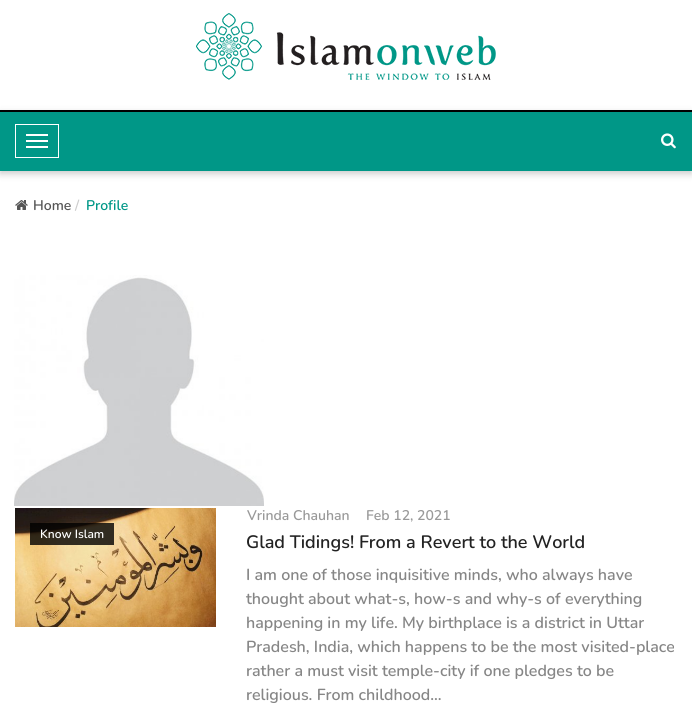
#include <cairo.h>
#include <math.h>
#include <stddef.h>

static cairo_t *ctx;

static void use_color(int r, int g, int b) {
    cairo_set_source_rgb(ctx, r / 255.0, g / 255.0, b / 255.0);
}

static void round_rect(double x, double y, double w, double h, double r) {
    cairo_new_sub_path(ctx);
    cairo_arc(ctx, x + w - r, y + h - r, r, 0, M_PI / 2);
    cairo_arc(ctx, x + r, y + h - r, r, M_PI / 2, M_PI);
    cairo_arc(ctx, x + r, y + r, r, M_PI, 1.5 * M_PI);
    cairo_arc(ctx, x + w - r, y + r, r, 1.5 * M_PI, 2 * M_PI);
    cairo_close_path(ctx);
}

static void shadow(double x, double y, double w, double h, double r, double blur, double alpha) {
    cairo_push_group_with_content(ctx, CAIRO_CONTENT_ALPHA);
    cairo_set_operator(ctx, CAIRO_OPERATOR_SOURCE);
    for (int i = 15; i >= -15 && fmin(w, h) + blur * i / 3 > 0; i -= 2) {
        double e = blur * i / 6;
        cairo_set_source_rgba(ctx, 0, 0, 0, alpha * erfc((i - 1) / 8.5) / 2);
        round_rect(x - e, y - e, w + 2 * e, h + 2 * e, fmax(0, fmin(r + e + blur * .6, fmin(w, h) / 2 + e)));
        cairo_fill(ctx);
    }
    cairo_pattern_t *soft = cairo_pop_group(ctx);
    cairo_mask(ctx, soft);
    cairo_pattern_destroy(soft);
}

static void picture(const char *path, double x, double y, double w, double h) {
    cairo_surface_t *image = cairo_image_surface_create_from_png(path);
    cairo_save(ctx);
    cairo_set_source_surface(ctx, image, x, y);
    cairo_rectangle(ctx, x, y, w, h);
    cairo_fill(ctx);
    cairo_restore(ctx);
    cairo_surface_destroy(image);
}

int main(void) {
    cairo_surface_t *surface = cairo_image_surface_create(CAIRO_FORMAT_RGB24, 692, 718);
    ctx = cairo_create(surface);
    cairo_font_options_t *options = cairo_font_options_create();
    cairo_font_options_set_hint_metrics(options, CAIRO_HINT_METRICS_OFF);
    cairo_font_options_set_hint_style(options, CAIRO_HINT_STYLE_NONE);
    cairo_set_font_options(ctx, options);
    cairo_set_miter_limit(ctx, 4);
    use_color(255, 255, 255);
    cairo_paint(ctx);
    picture("img1.png", 196, 13, 300, 67);
    use_color(0, 0, 0);
    shadow(0, 113, 692, 61, 0, 3.5, 0.2);
    use_color(0, 151, 135);
    cairo_rectangle(ctx, 0, 112, 692, 59);
    cairo_fill(ctx);
    use_color(0, 0, 0);
    cairo_rectangle(ctx, 0, 110, 692, 2);
    cairo_fill(ctx);
    cairo_rectangle(ctx, 15.5, 124.5, 43, 33);
    use_color(255, 255, 255);
    cairo_set_line_width(ctx, 1);
    cairo_stroke(ctx);
    cairo_rectangle(ctx, 26, 134, 22, 2);
    cairo_fill(ctx);
    cairo_rectangle(ctx, 26, 140, 22, 2);
    cairo_fill(ctx);
    cairo_rectangle(ctx, 26, 146, 22, 2);
    cairo_fill(ctx);
    picture("img2.png", 661, 133, 15, 16);
    picture("img3.png", 15, 200, 13, 10);
    cairo_select_font_face(ctx, "Nunito ExtraLight", CAIRO_FONT_SLANT_NORMAL, CAIRO_FONT_WEIGHT_NORMAL);
    cairo_set_font_size(ctx, 14);
    use_color(85, 85, 85);
    cairo_move_to(ctx, 33, 210);
    cairo_show_text(ctx, "Home");
    use_color(204, 204, 204);
    cairo_move_to(ctx, 75, 210);
    cairo_show_text(ctx, "/");
    use_color(0, 151, 135);
    cairo_move_to(ctx, 86, 210);
    cairo_show_text(ctx, "Profile");
    picture("img4.png", 14, 275, 250, 231);
    picture("img5.png", 15, 508, 201, 119);
    cairo_set_source_rgba(ctx, 0, 0, 0, 0.8);
    cairo_rectangle(ctx, 30, 523, 84, 22);
    cairo_fill(ctx);
    cairo_set_font_size(ctx, 12);
    use_color(255, 255, 255);
    cairo_move_to(ctx, 40, 538);
    cairo_show_text(ctx, "Know Islam");
    cairo_set_font_size(ctx, 14);
    use_color(153, 153, 153);
    cairo_move_to(ctx, 247, 520);
    cairo_show_text(ctx, "Vrinda Chauhan");
    cairo_move_to(ctx, 366, 520);
    cairo_show_text(ctx, "Feb 12, 2021");
    cairo_set_font_size(ctx, 18);
    use_color(34, 34, 34);
    cairo_move_to(ctx, 246, 548);
    cairo_show_text(ctx, "Glad Tidings! From a Revert to the World");
    cairo_set_font_size(ctx, 16);
    use_color(134, 134, 134);
    cairo_move_to(ctx, 246, 580);
    cairo_show_text(ctx, "I am one of those inquisitive minds, who always have");
    cairo_move_to(ctx, 246, 604);
    cairo_show_text(ctx, "thought about what-s, how-s and why-s of everything");
    cairo_move_to(ctx, 246, 628);
    cairo_show_text(ctx, "happening in my life. My birthplace is a district in Uttar");
    cairo_move_to(ctx, 246, 652);
    cairo_show_text(ctx, "Pradesh, India, which happens to be the most visited-place");
    cairo_move_to(ctx, 246, 676);
    cairo_show_text(ctx, "rather a must visit temple-city if one pledges to be");
    cairo_move_to(ctx, 246, 700);
    cairo_show_text(ctx, "religious. From childhood...");
    cairo_surface_write_to_png(surface, "result.png");
    cairo_font_options_destroy(options);
    cairo_destroy(ctx);
    cairo_surface_destroy(surface);
    return 0;
}
